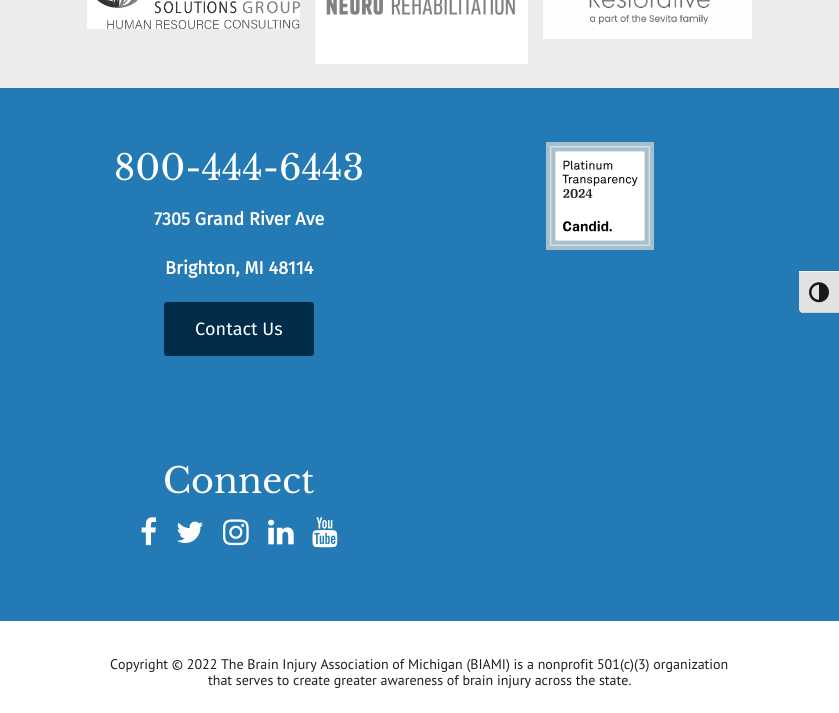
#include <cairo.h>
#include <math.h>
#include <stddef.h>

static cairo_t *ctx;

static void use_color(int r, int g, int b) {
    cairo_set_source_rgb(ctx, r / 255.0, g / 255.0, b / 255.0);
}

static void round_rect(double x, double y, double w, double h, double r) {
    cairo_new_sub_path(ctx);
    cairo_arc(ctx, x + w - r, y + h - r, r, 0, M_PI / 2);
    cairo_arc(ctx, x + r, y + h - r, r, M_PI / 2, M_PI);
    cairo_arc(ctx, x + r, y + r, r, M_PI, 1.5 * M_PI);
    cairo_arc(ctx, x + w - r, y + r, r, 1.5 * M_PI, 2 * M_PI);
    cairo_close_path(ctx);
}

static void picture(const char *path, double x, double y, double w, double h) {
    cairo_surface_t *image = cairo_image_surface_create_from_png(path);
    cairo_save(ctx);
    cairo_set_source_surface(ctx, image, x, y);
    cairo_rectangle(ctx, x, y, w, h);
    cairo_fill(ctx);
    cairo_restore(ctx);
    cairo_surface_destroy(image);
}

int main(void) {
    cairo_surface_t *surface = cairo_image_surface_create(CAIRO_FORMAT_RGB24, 839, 713);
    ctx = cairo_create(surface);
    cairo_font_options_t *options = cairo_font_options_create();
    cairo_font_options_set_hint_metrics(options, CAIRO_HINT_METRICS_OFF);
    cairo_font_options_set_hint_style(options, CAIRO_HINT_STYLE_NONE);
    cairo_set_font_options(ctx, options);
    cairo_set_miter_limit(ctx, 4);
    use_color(236, 236, 236);
    cairo_paint(ctx);
    picture("img1.png", 87, 0, 213, 29);
    picture("img2.png", 315, 0, 213, 64);
    picture("img3.png", 543, 0, 209, 39);
    use_color(35, 122, 181);
    cairo_rectangle(ctx, 0, 88, 839, 533);
    cairo_fill(ctx);
    cairo_select_font_face(ctx, "Libre Baskerville", CAIRO_FONT_SLANT_NORMAL, CAIRO_FONT_WEIGHT_NORMAL);
    cairo_set_font_size(ctx, 35);
    use_color(255, 255, 255);
    cairo_move_to(ctx, 114, 180);
    cairo_show_text(ctx, "800-444-6443");
    cairo_select_font_face(ctx, "Fira Sans", CAIRO_FONT_SLANT_NORMAL, CAIRO_FONT_WEIGHT_BOLD);
    cairo_set_font_size(ctx, 18);
    cairo_move_to(ctx, 154, 225);
    cairo_show_text(ctx, "7305 Grand River Ave");
    cairo_move_to(ctx, 165, 274);
    cairo_show_text(ctx, "Brighton, MI 48114");
    use_color(0, 43, 73);
    round_rect(164.5, 302.5, 149, 53, 2.5);
    cairo_fill_preserve(ctx);
    cairo_set_line_width(ctx, 1);
    cairo_stroke(ctx);
    cairo_select_font_face(ctx, "Fira Sans", CAIRO_FONT_SLANT_NORMAL, CAIRO_FONT_WEIGHT_NORMAL);
    use_color(255, 255, 255);
    cairo_move_to(ctx, 195, 335);
    cairo_show_text(ctx, "Contact Us");
    picture("img4.png", 546, 142, 108, 108);
    cairo_select_font_face(ctx, "Libre Baskerville", CAIRO_FONT_SLANT_NORMAL, CAIRO_FONT_WEIGHT_NORMAL);
    cairo_set_font_size(ctx, 35);
    cairo_move_to(ctx, 163, 493);
    cairo_show_text(ctx, "Connect");
    picture("img5.png", 141, 517, 16, 29);
    picture("img6.png", 177, 521, 26, 22);
    picture("img7.png", 223, 519, 26, 27);
    picture("img8.png", 268, 519, 26, 26);
    picture("img9.png", 312, 517, 26, 31);
    cairo_rectangle(ctx, 0, 621, 839, 92);
    cairo_fill(ctx);
    cairo_select_font_face(ctx, "PT Sans", CAIRO_FONT_SLANT_NORMAL, CAIRO_FONT_WEIGHT_NORMAL);
    cairo_set_font_size(ctx, 14);
    use_color(30, 30, 30);
    cairo_move_to(ctx, 110, 669);
    cairo_show_text(ctx, "Copyright © 2022 The Brain Injury Association of Michigan (BIAMI) is a nonprofit 501(c)(3) organization");
    cairo_move_to(ctx, 208, 685);
    cairo_show_text(ctx, "that serves to create greater awareness of brain injury across the state.");
    use_color(226, 226, 226);
    cairo_new_path(ctx);
    cairo_move_to(ctx, 799, 271);
    cairo_line_to(ctx, 839, 271);
    cairo_line_to(ctx, 839, 313);
    cairo_line_to(ctx, 803, 313);
    cairo_curve_to(ctx, 801, 313, 799, 311, 799, 309);
    cairo_close_path(ctx);
    cairo_fill(ctx);
    use_color(245, 245, 245);
    cairo_rectangle(ctx, 799, 271, 40, 1);
    cairo_fill(ctx);
    use_color(210, 210, 210);
    cairo_new_path(ctx);
    cairo_move_to(ctx, 839, 313);
    cairo_line_to(ctx, 839, 312);
    cairo_line_to(ctx, 803, 312);
    cairo_curve_to(ctx, 801, 312, 799, 311, 799, 309);
    cairo_curve_to(ctx, 799, 311, 801, 313, 803, 313);
    cairo_close_path(ctx);
    cairo_fill(ctx);
    picture("img10.png", 809, 282, 20, 21);
    cairo_surface_write_to_png(surface, "result.png");
    cairo_font_options_destroy(options);
    cairo_destroy(ctx);
    cairo_surface_destroy(surface);
    return 0;
}
